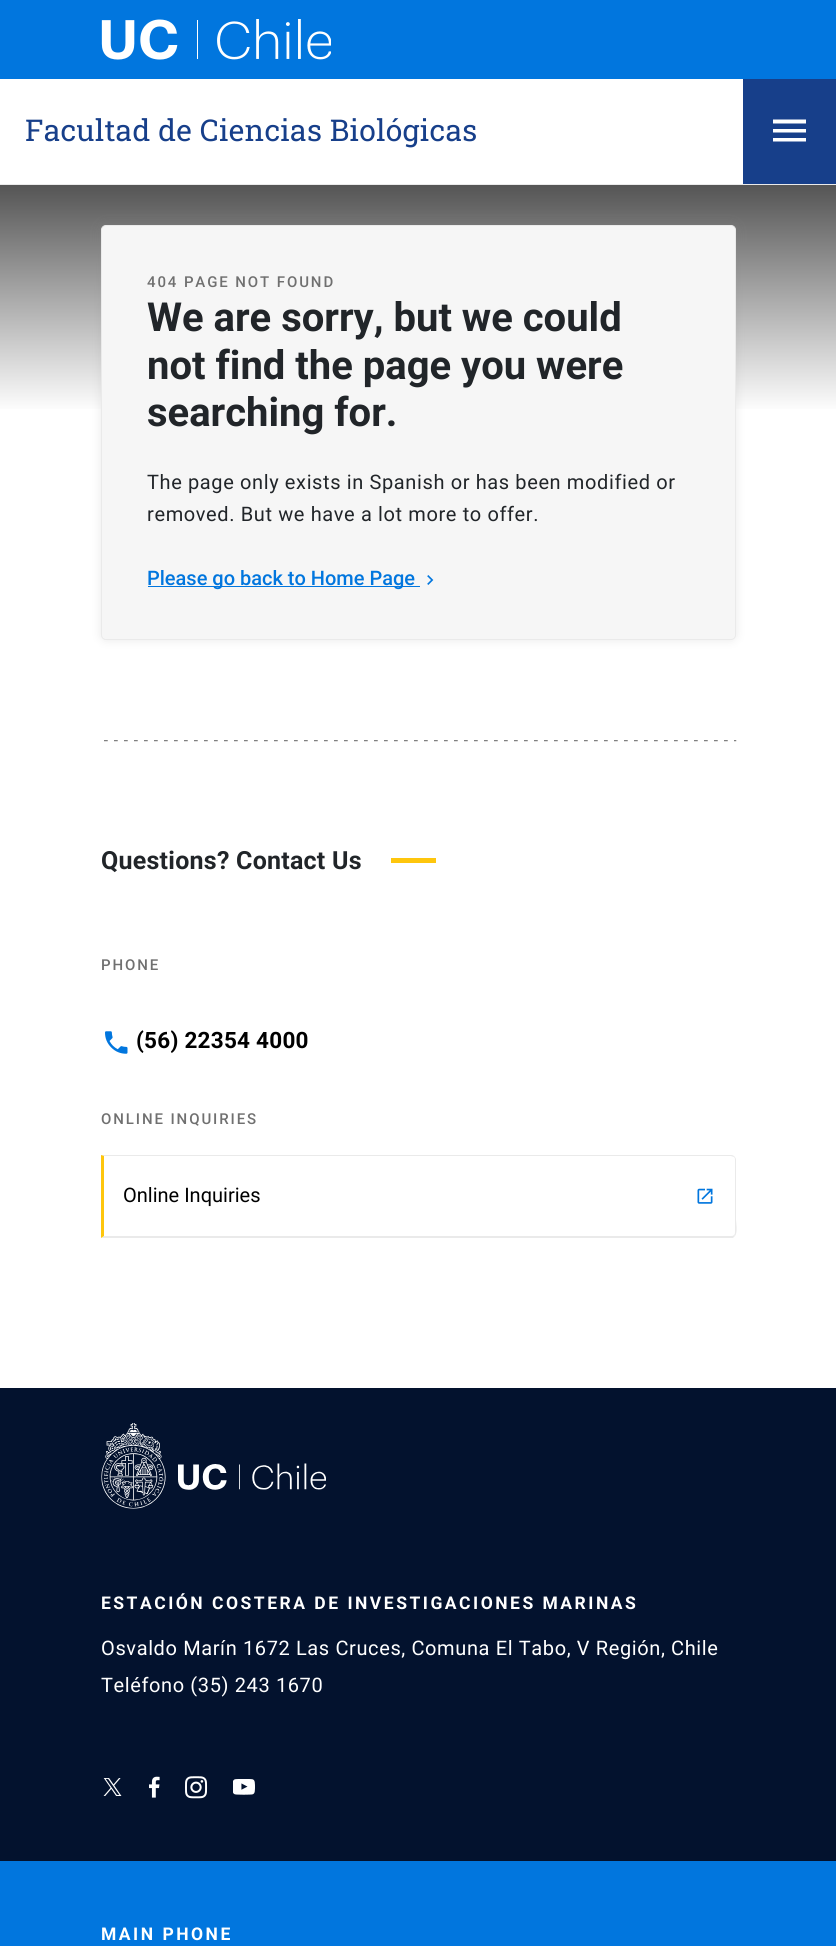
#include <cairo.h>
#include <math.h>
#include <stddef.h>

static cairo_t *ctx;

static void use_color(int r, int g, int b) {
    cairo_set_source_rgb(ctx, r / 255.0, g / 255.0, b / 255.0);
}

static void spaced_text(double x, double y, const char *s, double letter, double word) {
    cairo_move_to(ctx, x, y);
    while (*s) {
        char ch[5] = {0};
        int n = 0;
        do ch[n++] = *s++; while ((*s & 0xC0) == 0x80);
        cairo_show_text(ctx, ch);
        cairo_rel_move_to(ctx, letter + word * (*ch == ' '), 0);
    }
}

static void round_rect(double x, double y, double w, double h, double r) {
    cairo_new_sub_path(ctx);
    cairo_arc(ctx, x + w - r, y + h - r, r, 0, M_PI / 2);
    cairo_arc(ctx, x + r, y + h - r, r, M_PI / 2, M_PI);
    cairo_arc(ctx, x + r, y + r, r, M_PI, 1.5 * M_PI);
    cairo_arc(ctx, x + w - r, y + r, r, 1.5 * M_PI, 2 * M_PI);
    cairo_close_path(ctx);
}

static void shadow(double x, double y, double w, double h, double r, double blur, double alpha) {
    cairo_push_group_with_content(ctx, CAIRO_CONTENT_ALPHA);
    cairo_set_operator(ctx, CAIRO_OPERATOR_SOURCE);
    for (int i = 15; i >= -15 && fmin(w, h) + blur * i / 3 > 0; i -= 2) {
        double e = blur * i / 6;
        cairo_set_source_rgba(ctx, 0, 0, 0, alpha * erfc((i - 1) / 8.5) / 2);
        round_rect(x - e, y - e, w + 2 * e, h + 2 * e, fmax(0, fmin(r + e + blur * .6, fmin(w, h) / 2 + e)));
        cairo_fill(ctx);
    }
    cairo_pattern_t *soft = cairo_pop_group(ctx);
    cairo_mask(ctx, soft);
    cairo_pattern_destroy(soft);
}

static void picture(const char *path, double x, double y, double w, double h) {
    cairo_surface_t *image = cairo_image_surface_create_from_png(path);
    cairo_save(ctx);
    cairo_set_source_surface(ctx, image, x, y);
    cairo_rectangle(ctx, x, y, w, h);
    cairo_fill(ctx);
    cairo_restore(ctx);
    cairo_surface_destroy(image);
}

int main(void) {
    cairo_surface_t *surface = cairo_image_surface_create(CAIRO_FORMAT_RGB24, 836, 1946);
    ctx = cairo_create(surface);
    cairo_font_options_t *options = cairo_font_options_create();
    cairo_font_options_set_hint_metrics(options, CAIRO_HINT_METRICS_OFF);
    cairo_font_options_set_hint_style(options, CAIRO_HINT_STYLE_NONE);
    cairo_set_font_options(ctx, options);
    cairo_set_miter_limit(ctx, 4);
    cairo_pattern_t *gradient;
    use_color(255, 255, 255);
    cairo_paint(ctx);
    use_color(1, 118, 222);
    cairo_rectangle(ctx, 0, 0, 836, 79);
    cairo_fill(ctx);
    picture("img1.png", 101, 19, 230, 41);
    use_color(234, 234, 234);
    cairo_rectangle(ctx, 0, 184, 836, 1);
    cairo_fill(ctx);
    cairo_select_font_face(ctx, "Roboto Slab", CAIRO_FONT_SLANT_NORMAL, CAIRO_FONT_WEIGHT_NORMAL);
    cairo_set_font_size(ctx, 30);
    use_color(23, 63, 138);
    spaced_text(25, 141, "Facultad de Ciencias Biológicas", 0.25, 0);
    cairo_rectangle(ctx, 743, 79, 93, 105);
    cairo_fill(ctx);
    use_color(255, 255, 255);
    cairo_new_path(ctx);
    cairo_move_to(ctx, 773, 119.5);
    cairo_line_to(ctx, 806, 119.5);
    cairo_line_to(ctx, 806, 123.5);
    cairo_line_to(ctx, 773, 123.5);
    cairo_close_path(ctx);
    cairo_move_to(ctx, 773, 132.5);
    cairo_line_to(ctx, 773, 129);
    cairo_line_to(ctx, 806, 129);
    cairo_line_to(ctx, 806, 132.5);
    cairo_close_path(ctx);
    cairo_move_to(ctx, 773, 141.5);
    cairo_line_to(ctx, 773, 138);
    cairo_line_to(ctx, 806, 138);
    cairo_line_to(ctx, 806, 141.5);
    cairo_close_path(ctx);
    cairo_fill(ctx);
    gradient = cairo_pattern_create_linear(418, 185, 418, 640);
    cairo_pattern_add_color_stop_rgba(gradient, 0, 0.333, 0.333, 0.333, 1);
    cairo_pattern_add_color_stop_rgba(gradient, 0.5, 1, 1, 1, 1);
    cairo_set_source(ctx, gradient);
    cairo_pattern_destroy(gradient);
    cairo_rectangle(ctx, 0, 185, 836, 224);
    cairo_fill(ctx);
    use_color(136, 136, 136);
    shadow(101, 225, 635, 415, 5, 5, 0.18);
    use_color(246, 246, 246);
    round_rect(101.5, 225.5, 634, 414, 4.5);
    cairo_fill_preserve(ctx);
    use_color(234, 234, 234);
    cairo_set_line_width(ctx, 1);
    cairo_stroke(ctx);
    cairo_select_font_face(ctx, "Roboto Medium", CAIRO_FONT_SLANT_NORMAL, CAIRO_FONT_WEIGHT_NORMAL);
    cairo_set_font_size(ctx, 15);
    use_color(112, 112, 112);
    spaced_text(147, 287, "404 PAGE NOT FOUND", 1.9, 0);
    cairo_select_font_face(ctx, "Roboto", CAIRO_FONT_SLANT_NORMAL, CAIRO_FONT_WEIGHT_BOLD);
    cairo_set_font_size(ctx, 40);
    use_color(33, 37, 41);
    cairo_move_to(ctx, 147, 331);
    cairo_show_text(ctx, "We are sorry, but we could");
    cairo_move_to(ctx, 147, 379);
    cairo_show_text(ctx, "not find the page you were");
    cairo_move_to(ctx, 147, 426);
    cairo_show_text(ctx, "searching for.");
    cairo_select_font_face(ctx, "Roboto", CAIRO_FONT_SLANT_NORMAL, CAIRO_FONT_WEIGHT_NORMAL);
    cairo_set_font_size(ctx, 20);
    spaced_text(147, 489, "The page only exists in Spanish or has been modified or", 0.62, 0);
    spaced_text(147, 521, "removed. But we have a lot more to offer.", 0.62, 0);
    use_color(1, 118, 222);
    cairo_rectangle(ctx, 148, 586, 272, 1);
    cairo_fill(ctx);
    cairo_select_font_face(ctx, "Roboto Medium", CAIRO_FONT_SLANT_NORMAL, CAIRO_FONT_WEIGHT_NORMAL);
    cairo_move_to(ctx, 147, 585);
    cairo_show_text(ctx, "Please go back to Home Page");
    picture("img2.png", 427, 575, 7, 10);
    picture("img3.png", 104, 740, 633, 2);
    cairo_select_font_face(ctx, "Roboto", CAIRO_FONT_SLANT_NORMAL, CAIRO_FONT_WEIGHT_BOLD);
    cairo_set_font_size(ctx, 25);
    use_color(33, 37, 41);
    spaced_text(101, 869, "Questions? Contact Us", 0.25, 0);
    use_color(254, 198, 13);
    cairo_rectangle(ctx, 391, 858, 45, 5);
    cairo_fill(ctx);
    cairo_select_font_face(ctx, "Roboto Medium", CAIRO_FONT_SLANT_NORMAL, CAIRO_FONT_WEIGHT_NORMAL);
    cairo_set_font_size(ctx, 15);
    use_color(112, 112, 112);
    spaced_text(101, 970, "PHONE", 1.9, 0);
    picture("img4.png", 105, 1031, 23, 23);
    cairo_select_font_face(ctx, "Roboto", CAIRO_FONT_SLANT_NORMAL, CAIRO_FONT_WEIGHT_BOLD);
    cairo_set_font_size(ctx, 22.5);
    use_color(0, 0, 0);
    spaced_text(136, 1048, "(56) 22354 4000", 0.25, 0);
    cairo_select_font_face(ctx, "Roboto Medium", CAIRO_FONT_SLANT_NORMAL, CAIRO_FONT_WEIGHT_NORMAL);
    cairo_set_font_size(ctx, 15);
    use_color(112, 112, 112);
    spaced_text(101, 1124, "ONLINE INQUIRIES", 1.9, 0);
    use_color(234, 234, 234);
    cairo_new_path(ctx);
    cairo_move_to(ctx, 104, 1156);
    cairo_line_to(ctx, 731, 1156);
    cairo_line_to(ctx, 734, 1157);
    cairo_line_to(ctx, 735, 1157);
    cairo_curve_to(ctx, 734, 1156, 733, 1155, 731, 1155);
    cairo_line_to(ctx, 101, 1155);
    cairo_close_path(ctx);
    cairo_fill(ctx);
    cairo_new_path(ctx);
    cairo_move_to(ctx, 735, 1157);
    cairo_line_to(ctx, 736, 1159);
    cairo_line_to(ctx, 736, 1220);
    cairo_curve_to(ctx, 736, 1222, 738, 1232, 735, 1236);
    cairo_line_to(ctx, 734, 1235);
    cairo_curve_to(ctx, 735, 1234, 735, 1233, 735, 1232);
    cairo_line_to(ctx, 735, 1160);
    cairo_curve_to(ctx, 735, 1159, 735, 1158, 734, 1157);
    cairo_close_path(ctx);
    cairo_fill(ctx);
    cairo_new_path(ctx);
    cairo_move_to(ctx, 735, 1236);
    cairo_line_to(ctx, 733, 1238);
    cairo_line_to(ctx, 101, 1238);
    cairo_line_to(ctx, 104, 1236);
    cairo_line_to(ctx, 731, 1236);
    cairo_curve_to(ctx, 732, 1236, 733, 1236, 734, 1235);
    cairo_close_path(ctx);
    cairo_fill(ctx);
    use_color(254, 198, 13);
    cairo_new_path(ctx);
    cairo_move_to(ctx, 101, 1238);
    cairo_line_to(ctx, 104, 1236);
    cairo_line_to(ctx, 104, 1156);
    cairo_line_to(ctx, 101, 1155);
    cairo_close_path(ctx);
    cairo_fill(ctx);
    cairo_select_font_face(ctx, "Roboto", CAIRO_FONT_SLANT_NORMAL, CAIRO_FONT_WEIGHT_NORMAL);
    cairo_set_font_size(ctx, 20);
    use_color(0, 0, 0);
    cairo_move_to(ctx, 123, 1202);
    cairo_show_text(ctx, "Online Inquiries");
    picture("img5.png", 697, 1188, 16, 16);
    use_color(3, 18, 46);
    cairo_rectangle(ctx, 0, 1388, 836, 473);
    cairo_fill(ctx);
    picture("img6.png", 101, 1423, 225, 86);
    cairo_select_font_face(ctx, "Roboto", CAIRO_FONT_SLANT_NORMAL, CAIRO_FONT_WEIGHT_BOLD);
    cairo_set_font_size(ctx, 17.5);
    use_color(255, 255, 255);
    spaced_text(101, 1609, "ESTACIÓN COSTERA DE INVESTIGACIONES MARINAS", 2.5, 0);
    cairo_select_font_face(ctx, "Roboto", CAIRO_FONT_SLANT_NORMAL, CAIRO_FONT_WEIGHT_NORMAL);
    cairo_set_font_size(ctx, 20);
    spaced_text(101, 1655, "Osvaldo Marín 1672 Las Cruces, Comuna El Tabo, V Región, Chile", 0.62, 0);
    spaced_text(101, 1692, "Teléfono (35) 243 1670", 0.62, 0);
    picture("img7.png", 103, 1778, 19, 18);
    picture("img8.png", 149, 1776, 11, 22);
    picture("img9.png", 185, 1776, 23, 23);
    picture("img10.png", 233, 1779, 22, 16);
    use_color(1, 118, 222);
    cairo_rectangle(ctx, 0, 1861, 836, 85);
    cairo_fill(ctx);
    cairo_select_font_face(ctx, "Roboto", CAIRO_FONT_SLANT_NORMAL, CAIRO_FONT_WEIGHT_BOLD);
    cairo_set_font_size(ctx, 17.5);
    use_color(255, 255, 255);
    spaced_text(101, 1940, "MAIN PHONE", 2.5, 0);
    cairo_surface_write_to_png(surface, "result.png");
    cairo_font_options_destroy(options);
    cairo_destroy(ctx);
    cairo_surface_destroy(surface);
    return 0;
}
